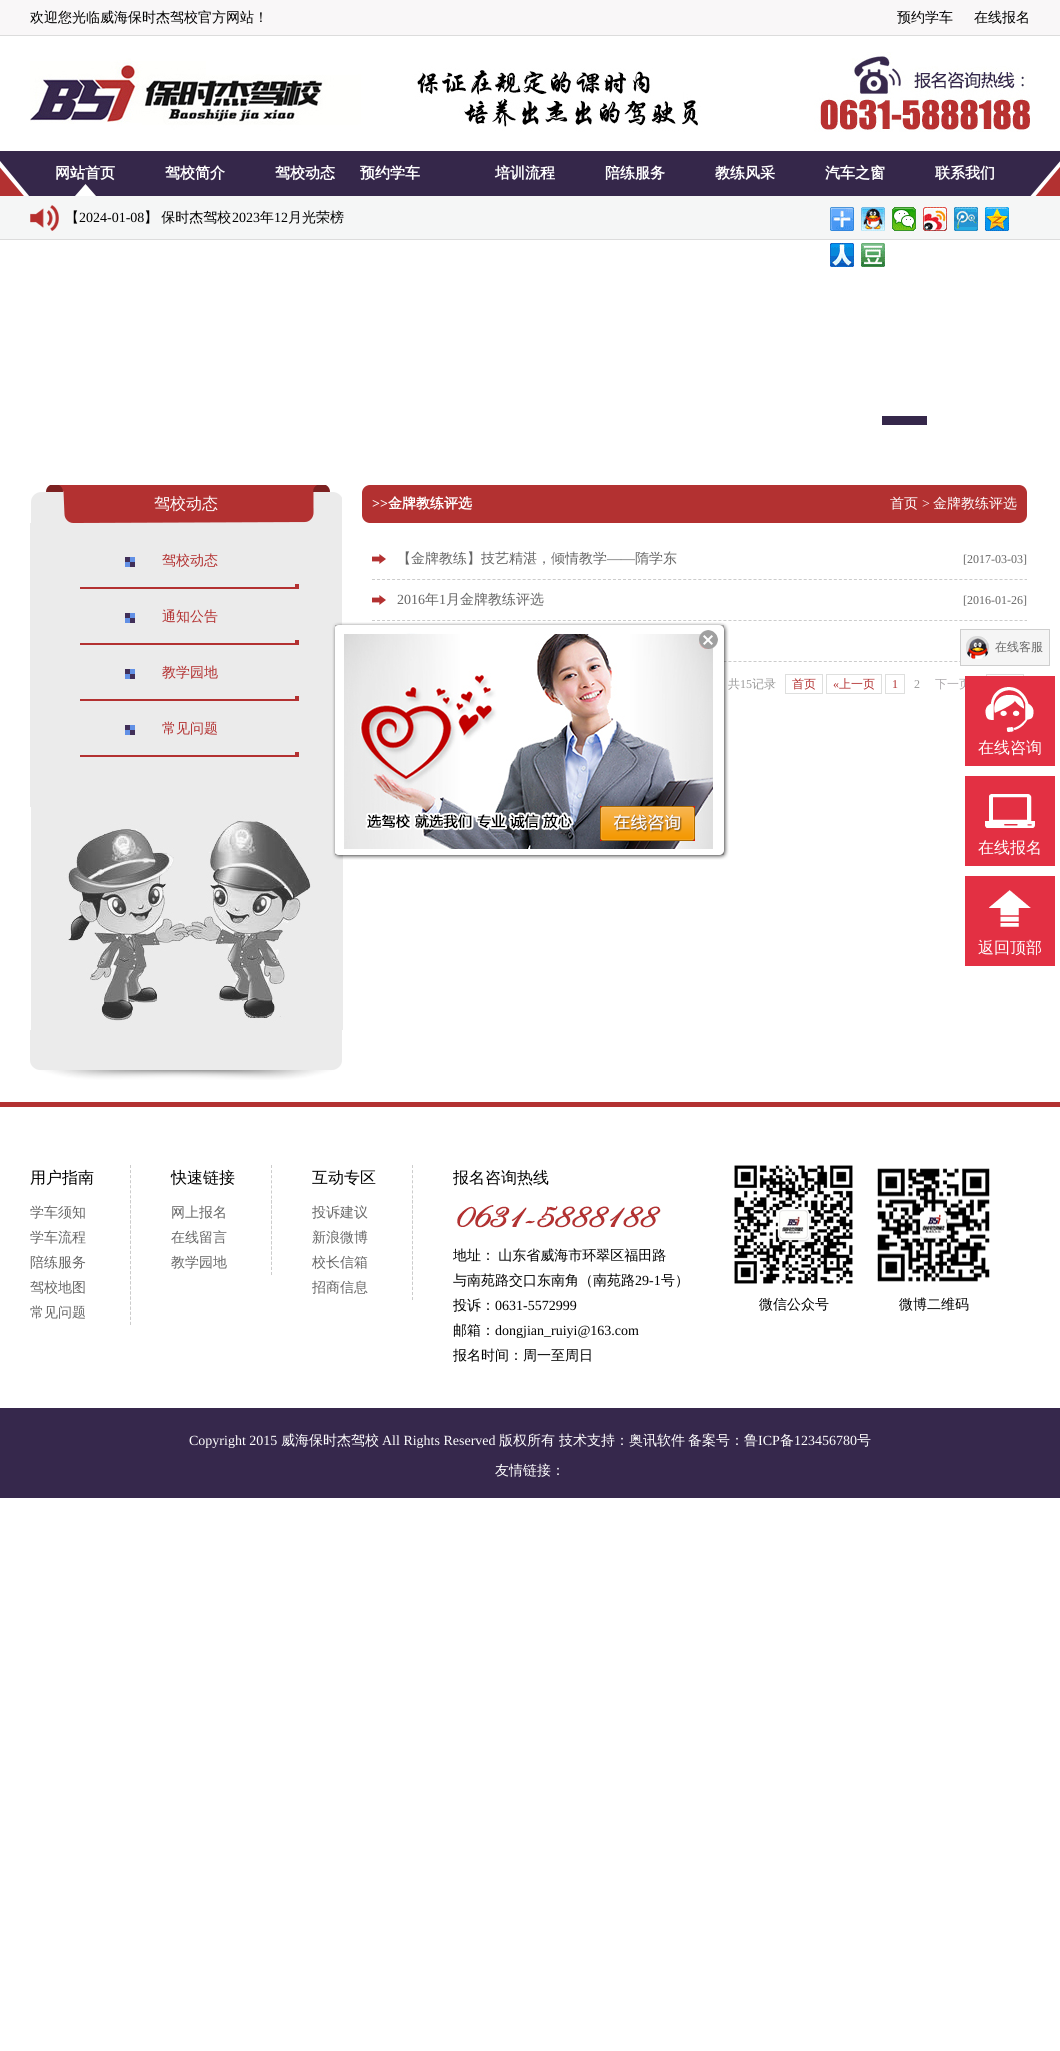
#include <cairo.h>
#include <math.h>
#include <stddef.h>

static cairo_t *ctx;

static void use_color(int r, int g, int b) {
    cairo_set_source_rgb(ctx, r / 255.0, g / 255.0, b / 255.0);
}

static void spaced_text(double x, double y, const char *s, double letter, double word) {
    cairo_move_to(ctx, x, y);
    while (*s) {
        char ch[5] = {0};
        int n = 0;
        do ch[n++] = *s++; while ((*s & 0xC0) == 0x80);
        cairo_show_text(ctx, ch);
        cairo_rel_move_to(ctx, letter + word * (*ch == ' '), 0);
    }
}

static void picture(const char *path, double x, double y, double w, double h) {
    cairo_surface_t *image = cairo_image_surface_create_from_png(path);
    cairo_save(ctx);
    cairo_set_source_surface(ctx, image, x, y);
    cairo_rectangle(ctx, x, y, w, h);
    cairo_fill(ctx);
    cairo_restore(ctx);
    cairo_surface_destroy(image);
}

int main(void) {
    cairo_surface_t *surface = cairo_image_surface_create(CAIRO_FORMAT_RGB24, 1060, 2051);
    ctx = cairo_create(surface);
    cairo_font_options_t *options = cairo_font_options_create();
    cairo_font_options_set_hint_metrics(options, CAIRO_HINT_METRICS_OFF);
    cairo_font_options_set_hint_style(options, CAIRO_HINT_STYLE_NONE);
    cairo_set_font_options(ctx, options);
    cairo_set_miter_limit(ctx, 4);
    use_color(255, 255, 255);
    cairo_paint(ctx);
    use_color(249, 247, 248);
    cairo_rectangle(ctx, 0, 0, 1060, 35);
    cairo_fill(ctx);
    use_color(220, 220, 220);
    cairo_rectangle(ctx, 0, 35, 1060, 1);
    cairo_fill(ctx);
    cairo_select_font_face(ctx, "WenQuanYi Zen Hei Medium", CAIRO_FONT_SLANT_NORMAL, CAIRO_FONT_WEIGHT_NORMAL);
    cairo_set_font_size(ctx, 14);
    use_color(0, 0, 0);
    cairo_move_to(ctx, 30, 22);
    cairo_show_text(ctx, "欢迎您光临威海保时杰驾校官方网站！");
    cairo_move_to(ctx, 897, 22);
    cairo_show_text(ctx, "预约学车");
    cairo_move_to(ctx, 974, 22);
    cairo_show_text(ctx, "在线报名");
    picture("img1.png", 30, 52, 1000, 80);
    picture("img2.png", 0, 151, 1060, 45);
    picture("img3.png", 75, 184, 21, 12);
    cairo_select_font_face(ctx, "WenQuanYi Zen Hei", CAIRO_FONT_SLANT_NORMAL, CAIRO_FONT_WEIGHT_BOLD);
    cairo_set_font_size(ctx, 15);
    use_color(255, 255, 255);
    cairo_move_to(ctx, 55, 178);
    cairo_show_text(ctx, "网站首页");
    cairo_move_to(ctx, 165, 178);
    cairo_show_text(ctx, "驾校简介");
    cairo_move_to(ctx, 275, 178);
    cairo_show_text(ctx, "驾校动态");
    cairo_move_to(ctx, 360, 178);
    cairo_show_text(ctx, "预约学车");
    cairo_move_to(ctx, 495, 178);
    cairo_show_text(ctx, "培训流程");
    cairo_move_to(ctx, 605, 178);
    cairo_show_text(ctx, "陪练服务");
    cairo_move_to(ctx, 715, 178);
    cairo_show_text(ctx, "教练风采");
    cairo_move_to(ctx, 825, 178);
    cairo_show_text(ctx, "汽车之窗");
    cairo_move_to(ctx, 935, 178);
    cairo_show_text(ctx, "联系我们");
    use_color(245, 246, 246);
    cairo_rectangle(ctx, 0, 196, 1060, 43);
    cairo_fill(ctx);
    use_color(220, 220, 220);
    cairo_rectangle(ctx, 0, 239, 1060, 1);
    cairo_fill(ctx);
    picture("img4.png", 30, 205, 29, 26);
    cairo_select_font_face(ctx, "WenQuanYi Zen Hei Medium", CAIRO_FONT_SLANT_NORMAL, CAIRO_FONT_WEIGHT_NORMAL);
    cairo_set_font_size(ctx, 14);
    use_color(0, 0, 0);
    cairo_move_to(ctx, 65, 222);
    cairo_show_text(ctx, "【");
    cairo_select_font_face(ctx, "Liberation Serif", CAIRO_FONT_SLANT_NORMAL, CAIRO_FONT_WEIGHT_NORMAL);
    cairo_move_to(ctx, 79, 222);
    cairo_show_text(ctx, "2024-01-08");
    cairo_select_font_face(ctx, "WenQuanYi Zen Hei Medium", CAIRO_FONT_SLANT_NORMAL, CAIRO_FONT_WEIGHT_NORMAL);
    spaced_text(144, 222, "】 保时杰驾校", 0, -1);
    cairo_select_font_face(ctx, "Liberation Serif", CAIRO_FONT_SLANT_NORMAL, CAIRO_FONT_WEIGHT_NORMAL);
    cairo_move_to(ctx, 232, 222);
    cairo_show_text(ctx, "2023");
    cairo_select_font_face(ctx, "WenQuanYi Zen Hei Medium", CAIRO_FONT_SLANT_NORMAL, CAIRO_FONT_WEIGHT_NORMAL);
    cairo_move_to(ctx, 260, 222);
    cairo_show_text(ctx, "年");
    cairo_select_font_face(ctx, "Liberation Serif", CAIRO_FONT_SLANT_NORMAL, CAIRO_FONT_WEIGHT_NORMAL);
    cairo_move_to(ctx, 274, 222);
    cairo_show_text(ctx, "12");
    cairo_select_font_face(ctx, "WenQuanYi Zen Hei Medium", CAIRO_FONT_SLANT_NORMAL, CAIRO_FONT_WEIGHT_NORMAL);
    cairo_move_to(ctx, 288, 222);
    cairo_show_text(ctx, "月光荣榜");
    picture("img5.png", 830, 207, 24, 24);
    picture("img6.png", 861, 207, 24, 24);
    picture("img7.png", 892, 207, 24, 24);
    picture("img8.png", 923, 207, 24, 24);
    picture("img9.png", 954, 207, 24, 24);
    picture("img10.png", 985, 207, 24, 24);
    picture("img11.png", 830, 243, 24, 24);
    picture("img12.png", 861, 243, 24, 24);
    use_color(53, 39, 74);
    cairo_rectangle(ctx, 882, 416, 45, 9);
    cairo_fill(ctx);
    picture("img13.png", 31, 485, 311, 38);
    cairo_set_font_size(ctx, 16);
    use_color(255, 255, 255);
    cairo_move_to(ctx, 154, 509);
    cairo_show_text(ctx, "驾校动态");
    use_color(235, 235, 235);
    cairo_rectangle(ctx, 30, 523, 312, 537);
    cairo_fill(ctx);
    picture("img14.png", 80, 584, 219, 5);
    picture("img15.png", 125, 557, 10, 10);
    cairo_set_font_size(ctx, 14);
    use_color(179, 49, 49);
    cairo_move_to(ctx, 162, 565);
    cairo_show_text(ctx, "驾校动态");
    picture("img14.png", 80, 640, 219, 5);
    picture("img15.png", 125, 613, 10, 10);
    cairo_move_to(ctx, 162, 621);
    cairo_show_text(ctx, "通知公告");
    picture("img14.png", 80, 696, 219, 5);
    picture("img15.png", 125, 669, 10, 10);
    cairo_move_to(ctx, 162, 677);
    cairo_show_text(ctx, "教学园地");
    picture("img14.png", 80, 752, 219, 5);
    picture("img15.png", 125, 725, 10, 10);
    cairo_move_to(ctx, 162, 733);
    cairo_show_text(ctx, "常见问题");
    picture("img16.png", 30, 807, 313, 223);
    picture("img17.png", 30, 1060, 312, 20);
    picture("img18.png", 362, 485, 665, 38);
    cairo_select_font_face(ctx, "Liberation Serif", CAIRO_FONT_SLANT_NORMAL, CAIRO_FONT_WEIGHT_BOLD);
    use_color(255, 255, 255);
    cairo_move_to(ctx, 372, 508);
    cairo_show_text(ctx, ">>");
    cairo_select_font_face(ctx, "WenQuanYi Zen Hei", CAIRO_FONT_SLANT_NORMAL, CAIRO_FONT_WEIGHT_BOLD);
    cairo_move_to(ctx, 388, 508);
    cairo_show_text(ctx, "金牌教练评选");
    cairo_select_font_face(ctx, "WenQuanYi Zen Hei Medium", CAIRO_FONT_SLANT_NORMAL, CAIRO_FONT_WEIGHT_NORMAL);
    cairo_move_to(ctx, 890, 508);
    cairo_show_text(ctx, "首页");
    cairo_select_font_face(ctx, "Liberation Serif", CAIRO_FONT_SLANT_NORMAL, CAIRO_FONT_WEIGHT_NORMAL);
    cairo_move_to(ctx, 922, 508);
    cairo_show_text(ctx, ">");
    cairo_select_font_face(ctx, "WenQuanYi Zen Hei Medium", CAIRO_FONT_SLANT_NORMAL, CAIRO_FONT_WEIGHT_NORMAL);
    cairo_move_to(ctx, 933, 508);
    cairo_show_text(ctx, "金牌教练评选");
    picture("img19.png", 372, 554, 14, 10);
    cairo_new_path(ctx);
    cairo_move_to(ctx, 372, 579.5);
    cairo_line_to(ctx, 1027, 579.5);
    use_color(204, 204, 204);
    cairo_set_line_width(ctx, 1);
    cairo_set_dash(ctx, (double[]){3, 2.02}, 2, 0);
    cairo_stroke(ctx);
    use_color(102, 102, 102);
    cairo_move_to(ctx, 397, 563);
    cairo_show_text(ctx, "【金牌教练】技艺精湛，倾情教学");
    cairo_select_font_face(ctx, "Liberation Serif", CAIRO_FONT_SLANT_NORMAL, CAIRO_FONT_WEIGHT_NORMAL);
    cairo_move_to(ctx, 607, 563);
    cairo_show_text(ctx, "——");
    cairo_select_font_face(ctx, "WenQuanYi Zen Hei Medium", CAIRO_FONT_SLANT_NORMAL, CAIRO_FONT_WEIGHT_NORMAL);
    cairo_move_to(ctx, 635, 563);
    cairo_show_text(ctx, "隋学东");
    cairo_select_font_face(ctx, "Liberation Serif", CAIRO_FONT_SLANT_NORMAL, CAIRO_FONT_WEIGHT_NORMAL);
    cairo_set_font_size(ctx, 12);
    cairo_move_to(ctx, 963, 563);
    cairo_show_text(ctx, "[2017-03-03]");
    picture("img19.png", 372, 595, 14, 10);
    cairo_new_path(ctx);
    cairo_move_to(ctx, 372, 620.5);
    cairo_line_to(ctx, 1027, 620.5);
    use_color(204, 204, 204);
    cairo_stroke(ctx);
    cairo_set_font_size(ctx, 14);
    use_color(102, 102, 102);
    cairo_move_to(ctx, 397, 604);
    cairo_show_text(ctx, "2016");
    cairo_select_font_face(ctx, "WenQuanYi Zen Hei Medium", CAIRO_FONT_SLANT_NORMAL, CAIRO_FONT_WEIGHT_NORMAL);
    cairo_move_to(ctx, 425, 604);
    cairo_show_text(ctx, "年");
    cairo_select_font_face(ctx, "Liberation Serif", CAIRO_FONT_SLANT_NORMAL, CAIRO_FONT_WEIGHT_NORMAL);
    cairo_move_to(ctx, 439, 604);
    cairo_show_text(ctx, "1");
    cairo_select_font_face(ctx, "WenQuanYi Zen Hei Medium", CAIRO_FONT_SLANT_NORMAL, CAIRO_FONT_WEIGHT_NORMAL);
    cairo_move_to(ctx, 446, 604);
    cairo_show_text(ctx, "月金牌教练评选");
    cairo_select_font_face(ctx, "Liberation Serif", CAIRO_FONT_SLANT_NORMAL, CAIRO_FONT_WEIGHT_NORMAL);
    cairo_set_font_size(ctx, 12);
    cairo_move_to(ctx, 963, 604);
    cairo_show_text(ctx, "[2016-01-26]");
    cairo_new_path(ctx);
    cairo_move_to(ctx, 372, 661.5);
    cairo_line_to(ctx, 1027, 661.5);
    use_color(204, 204, 204);
    cairo_stroke(ctx);
    cairo_select_font_face(ctx, "WenQuanYi Zen Hei Medium", CAIRO_FONT_SLANT_NORMAL, CAIRO_FONT_WEIGHT_NORMAL);
    use_color(153, 153, 153);
    cairo_move_to(ctx, 728, 688);
    cairo_show_text(ctx, "共");
    cairo_select_font_face(ctx, "Liberation Serif", CAIRO_FONT_SLANT_NORMAL, CAIRO_FONT_WEIGHT_NORMAL);
    cairo_move_to(ctx, 740, 688);
    cairo_show_text(ctx, "15");
    cairo_select_font_face(ctx, "WenQuanYi Zen Hei Medium", CAIRO_FONT_SLANT_NORMAL, CAIRO_FONT_WEIGHT_NORMAL);
    cairo_move_to(ctx, 752, 688);
    cairo_show_text(ctx, "记录");
    cairo_rectangle(ctx, 785.5, 674.5, 37, 19);
    use_color(222, 223, 222);
    cairo_set_dash(ctx, NULL, 0, 0);
    cairo_stroke(ctx);
    use_color(179, 49, 49);
    cairo_move_to(ctx, 792, 688);
    cairo_show_text(ctx, "首页");
    cairo_rectangle(ctx, 826.5, 674.5, 55, 19);
    use_color(222, 223, 222);
    cairo_stroke(ctx);
    cairo_select_font_face(ctx, "Liberation Serif", CAIRO_FONT_SLANT_NORMAL, CAIRO_FONT_WEIGHT_NORMAL);
    use_color(179, 49, 49);
    cairo_move_to(ctx, 833, 688);
    cairo_show_text(ctx, "«");
    cairo_select_font_face(ctx, "WenQuanYi Zen Hei Medium", CAIRO_FONT_SLANT_NORMAL, CAIRO_FONT_WEIGHT_NORMAL);
    cairo_move_to(ctx, 839, 688);
    cairo_show_text(ctx, "上一页");
    cairo_rectangle(ctx, 885.5, 674.5, 19, 19);
    use_color(222, 223, 222);
    cairo_stroke(ctx);
    cairo_select_font_face(ctx, "Liberation Serif", CAIRO_FONT_SLANT_NORMAL, CAIRO_FONT_WEIGHT_NORMAL);
    use_color(179, 49, 49);
    cairo_move_to(ctx, 892, 688);
    cairo_show_text(ctx, "1");
    use_color(153, 153, 153);
    cairo_move_to(ctx, 914, 688);
    cairo_show_text(ctx, "2");
    cairo_select_font_face(ctx, "WenQuanYi Zen Hei Medium", CAIRO_FONT_SLANT_NORMAL, CAIRO_FONT_WEIGHT_NORMAL);
    use_color(173, 170, 173);
    cairo_move_to(ctx, 935, 688);
    cairo_show_text(ctx, "下一页");
    cairo_rectangle(ctx, 986.5, 674.5, 37, 19);
    use_color(222, 223, 222);
    cairo_stroke(ctx);
    picture("img20.png", 332, 622, 397, 238);
    picture("img21.png", 699, 630, 19, 19);
    use_color(245, 245, 245);
    cairo_rectangle(ctx, 960.5, 629.5, 89, 36);
    cairo_fill_preserve(ctx);
    use_color(206, 206, 206);
    cairo_stroke(ctx);
    picture("img22.png", 966, 636, 23, 23);
    use_color(102, 102, 102);
    cairo_move_to(ctx, 995, 651);
    cairo_show_text(ctx, "在线客服");
    use_color(227, 48, 67);
    cairo_rectangle(ctx, 965, 676, 90, 90);
    cairo_fill(ctx);
    picture("img23.png", 985, 687, 49, 45);
    cairo_set_font_size(ctx, 16);
    use_color(255, 255, 255);
    cairo_move_to(ctx, 978, 753);
    cairo_show_text(ctx, "在线咨询");
    use_color(227, 48, 67);
    cairo_rectangle(ctx, 965, 776, 90, 90);
    cairo_fill(ctx);
    picture("img24.png", 985, 794, 50, 34);
    use_color(255, 255, 255);
    cairo_move_to(ctx, 978, 853);
    cairo_show_text(ctx, "在线报名");
    use_color(227, 48, 67);
    cairo_rectangle(ctx, 965, 876, 90, 90);
    cairo_fill(ctx);
    picture("img25.png", 989, 890, 42, 37);
    use_color(255, 255, 255);
    cairo_move_to(ctx, 978, 953);
    cairo_show_text(ctx, "返回顶部");
    use_color(179, 49, 49);
    cairo_rectangle(ctx, 0, 1102, 1060, 5);
    cairo_fill(ctx);
    cairo_new_path(ctx);
    cairo_move_to(ctx, 130.5, 1165);
    cairo_line_to(ctx, 130.5, 1325);
    use_color(204, 204, 204);
    cairo_set_dash(ctx, (double[]){3, 2.06}, 2, 0);
    cairo_stroke(ctx);
    use_color(0, 0, 0);
    cairo_move_to(ctx, 30, 1183);
    cairo_show_text(ctx, "用户指南");
    cairo_new_path(ctx);
    cairo_move_to(ctx, 130.5, 1200);
    cairo_line_to(ctx, 130.5, 1325);
    use_color(204, 204, 204);
    cairo_set_dash(ctx, (double[]){3, 2.08}, 2, 0);
    cairo_stroke(ctx);
    cairo_set_font_size(ctx, 14);
    use_color(102, 102, 102);
    cairo_move_to(ctx, 30, 1217);
    cairo_show_text(ctx, "学车须知");
    cairo_move_to(ctx, 30, 1242);
    cairo_show_text(ctx, "学车流程");
    cairo_move_to(ctx, 30, 1267);
    cairo_show_text(ctx, "陪练服务");
    cairo_move_to(ctx, 30, 1292);
    cairo_show_text(ctx, "驾校地图");
    cairo_move_to(ctx, 30, 1317);
    cairo_show_text(ctx, "常见问题");
    cairo_new_path(ctx);
    cairo_move_to(ctx, 271.5, 1165);
    cairo_line_to(ctx, 271.5, 1275);
    use_color(204, 204, 204);
    cairo_set_dash(ctx, (double[]){3, 2.1}, 2, 0);
    cairo_stroke(ctx);
    cairo_set_font_size(ctx, 16);
    use_color(0, 0, 0);
    cairo_move_to(ctx, 171, 1183);
    cairo_show_text(ctx, "快速链接");
    cairo_new_path(ctx);
    cairo_move_to(ctx, 271.5, 1200);
    cairo_line_to(ctx, 271.5, 1275);
    use_color(204, 204, 204);
    cairo_set_dash(ctx, (double[]){3, 2.14}, 2, 0);
    cairo_stroke(ctx);
    cairo_set_font_size(ctx, 14);
    use_color(102, 102, 102);
    cairo_move_to(ctx, 171, 1217);
    cairo_show_text(ctx, "网上报名");
    cairo_move_to(ctx, 171, 1242);
    cairo_show_text(ctx, "在线留言");
    cairo_move_to(ctx, 171, 1267);
    cairo_show_text(ctx, "教学园地");
    cairo_new_path(ctx);
    cairo_move_to(ctx, 412.5, 1165);
    cairo_line_to(ctx, 412.5, 1300);
    use_color(204, 204, 204);
    cairo_set_dash(ctx, (double[]){3, 2.08}, 2, 0);
    cairo_stroke(ctx);
    cairo_set_font_size(ctx, 16);
    use_color(0, 0, 0);
    cairo_move_to(ctx, 312, 1183);
    cairo_show_text(ctx, "互动专区");
    cairo_new_path(ctx);
    cairo_move_to(ctx, 412.5, 1200);
    cairo_line_to(ctx, 412.5, 1300);
    use_color(204, 204, 204);
    cairo_set_dash(ctx, (double[]){3, 2.11}, 2, 0);
    cairo_stroke(ctx);
    cairo_set_font_size(ctx, 14);
    use_color(102, 102, 102);
    cairo_move_to(ctx, 312, 1217);
    cairo_show_text(ctx, "投诉建议");
    cairo_move_to(ctx, 312, 1242);
    cairo_show_text(ctx, "新浪微博");
    cairo_move_to(ctx, 312, 1267);
    cairo_show_text(ctx, "校长信箱");
    cairo_move_to(ctx, 312, 1292);
    cairo_show_text(ctx, "招商信息");
    cairo_set_font_size(ctx, 16);
    use_color(0, 0, 0);
    cairo_move_to(ctx, 453, 1183);
    cairo_show_text(ctx, "报名咨询热线");
    picture("img26.png", 457, 1205, 204, 23);
    cairo_set_font_size(ctx, 14);
    spaced_text(453, 1260, "地址： 山东省威海市环翠区福田路", 0, -1);
    cairo_move_to(ctx, 453, 1285);
    cairo_show_text(ctx, "与南苑路交口东南角（南苑路");
    cairo_select_font_face(ctx, "Liberation Serif", CAIRO_FONT_SLANT_NORMAL, CAIRO_FONT_WEIGHT_NORMAL);
    cairo_move_to(ctx, 635, 1285);
    cairo_show_text(ctx, "29-1");
    cairo_select_font_face(ctx, "WenQuanYi Zen Hei Medium", CAIRO_FONT_SLANT_NORMAL, CAIRO_FONT_WEIGHT_NORMAL);
    cairo_move_to(ctx, 661, 1285);
    cairo_show_text(ctx, "号）");
    cairo_move_to(ctx, 453, 1310);
    cairo_show_text(ctx, "投诉：");
    cairo_select_font_face(ctx, "Liberation Serif", CAIRO_FONT_SLANT_NORMAL, CAIRO_FONT_WEIGHT_NORMAL);
    cairo_move_to(ctx, 495, 1310);
    cairo_show_text(ctx, "0631-5572999");
    cairo_select_font_face(ctx, "WenQuanYi Zen Hei Medium", CAIRO_FONT_SLANT_NORMAL, CAIRO_FONT_WEIGHT_NORMAL);
    cairo_move_to(ctx, 453, 1335);
    cairo_show_text(ctx, "邮箱：");
    cairo_select_font_face(ctx, "Liberation Serif", CAIRO_FONT_SLANT_NORMAL, CAIRO_FONT_WEIGHT_NORMAL);
    cairo_move_to(ctx, 495, 1335);
    cairo_show_text(ctx, "dongjian_ruiyi@163.com");
    cairo_select_font_face(ctx, "WenQuanYi Zen Hei Medium", CAIRO_FONT_SLANT_NORMAL, CAIRO_FONT_WEIGHT_NORMAL);
    cairo_move_to(ctx, 453, 1360);
    cairo_show_text(ctx, "报名时间：周一至周日");
    picture("img27.png", 734, 1165, 119, 119);
    cairo_move_to(ctx, 759, 1309);
    cairo_show_text(ctx, "微信公众号");
    picture("img28.png", 877, 1168, 113, 114);
    cairo_move_to(ctx, 899, 1309);
    cairo_show_text(ctx, "微博二维码");
    use_color(54, 40, 76);
    cairo_rectangle(ctx, 0, 1408, 1060, 90);
    cairo_fill(ctx);
    cairo_select_font_face(ctx, "Liberation Serif", CAIRO_FONT_SLANT_NORMAL, CAIRO_FONT_WEIGHT_NORMAL);
    use_color(255, 255, 255);
    cairo_move_to(ctx, 189, 1445);
    cairo_show_text(ctx, "Copyright 2015");
    cairo_select_font_face(ctx, "WenQuanYi Zen Hei Medium", CAIRO_FONT_SLANT_NORMAL, CAIRO_FONT_WEIGHT_NORMAL);
    cairo_move_to(ctx, 281, 1445);
    cairo_show_text(ctx, "威海保时杰驾校");
    cairo_select_font_face(ctx, "Liberation Serif", CAIRO_FONT_SLANT_NORMAL, CAIRO_FONT_WEIGHT_NORMAL);
    cairo_move_to(ctx, 382, 1445);
    cairo_show_text(ctx, "All Rights Reserved");
    cairo_select_font_face(ctx, "WenQuanYi Zen Hei Medium", CAIRO_FONT_SLANT_NORMAL, CAIRO_FONT_WEIGHT_NORMAL);
    cairo_move_to(ctx, 499, 1445);
    cairo_show_text(ctx, "版权所有");
    cairo_move_to(ctx, 559, 1445);
    cairo_show_text(ctx, "技术支持：奥讯软件");
    cairo_move_to(ctx, 688, 1445);
    cairo_show_text(ctx, "备案号：鲁");
    cairo_select_font_face(ctx, "Liberation Serif", CAIRO_FONT_SLANT_NORMAL, CAIRO_FONT_WEIGHT_NORMAL);
    cairo_move_to(ctx, 758, 1445);
    cairo_show_text(ctx, "ICP");
    cairo_select_font_face(ctx, "WenQuanYi Zen Hei Medium", CAIRO_FONT_SLANT_NORMAL, CAIRO_FONT_WEIGHT_NORMAL);
    cairo_move_to(ctx, 780, 1445);
    cairo_show_text(ctx, "备");
    cairo_select_font_face(ctx, "Liberation Serif", CAIRO_FONT_SLANT_NORMAL, CAIRO_FONT_WEIGHT_NORMAL);
    cairo_move_to(ctx, 794, 1445);
    cairo_show_text(ctx, "123456780");
    cairo_select_font_face(ctx, "WenQuanYi Zen Hei Medium", CAIRO_FONT_SLANT_NORMAL, CAIRO_FONT_WEIGHT_NORMAL);
    cairo_move_to(ctx, 857, 1445);
    cairo_show_text(ctx, "号");
    cairo_move_to(ctx, 495, 1475);
    cairo_show_text(ctx, "友情链接：");
    cairo_surface_write_to_png(surface, "result.png");
    cairo_font_options_destroy(options);
    cairo_destroy(ctx);
    cairo_surface_destroy(surface);
    return 0;
}
